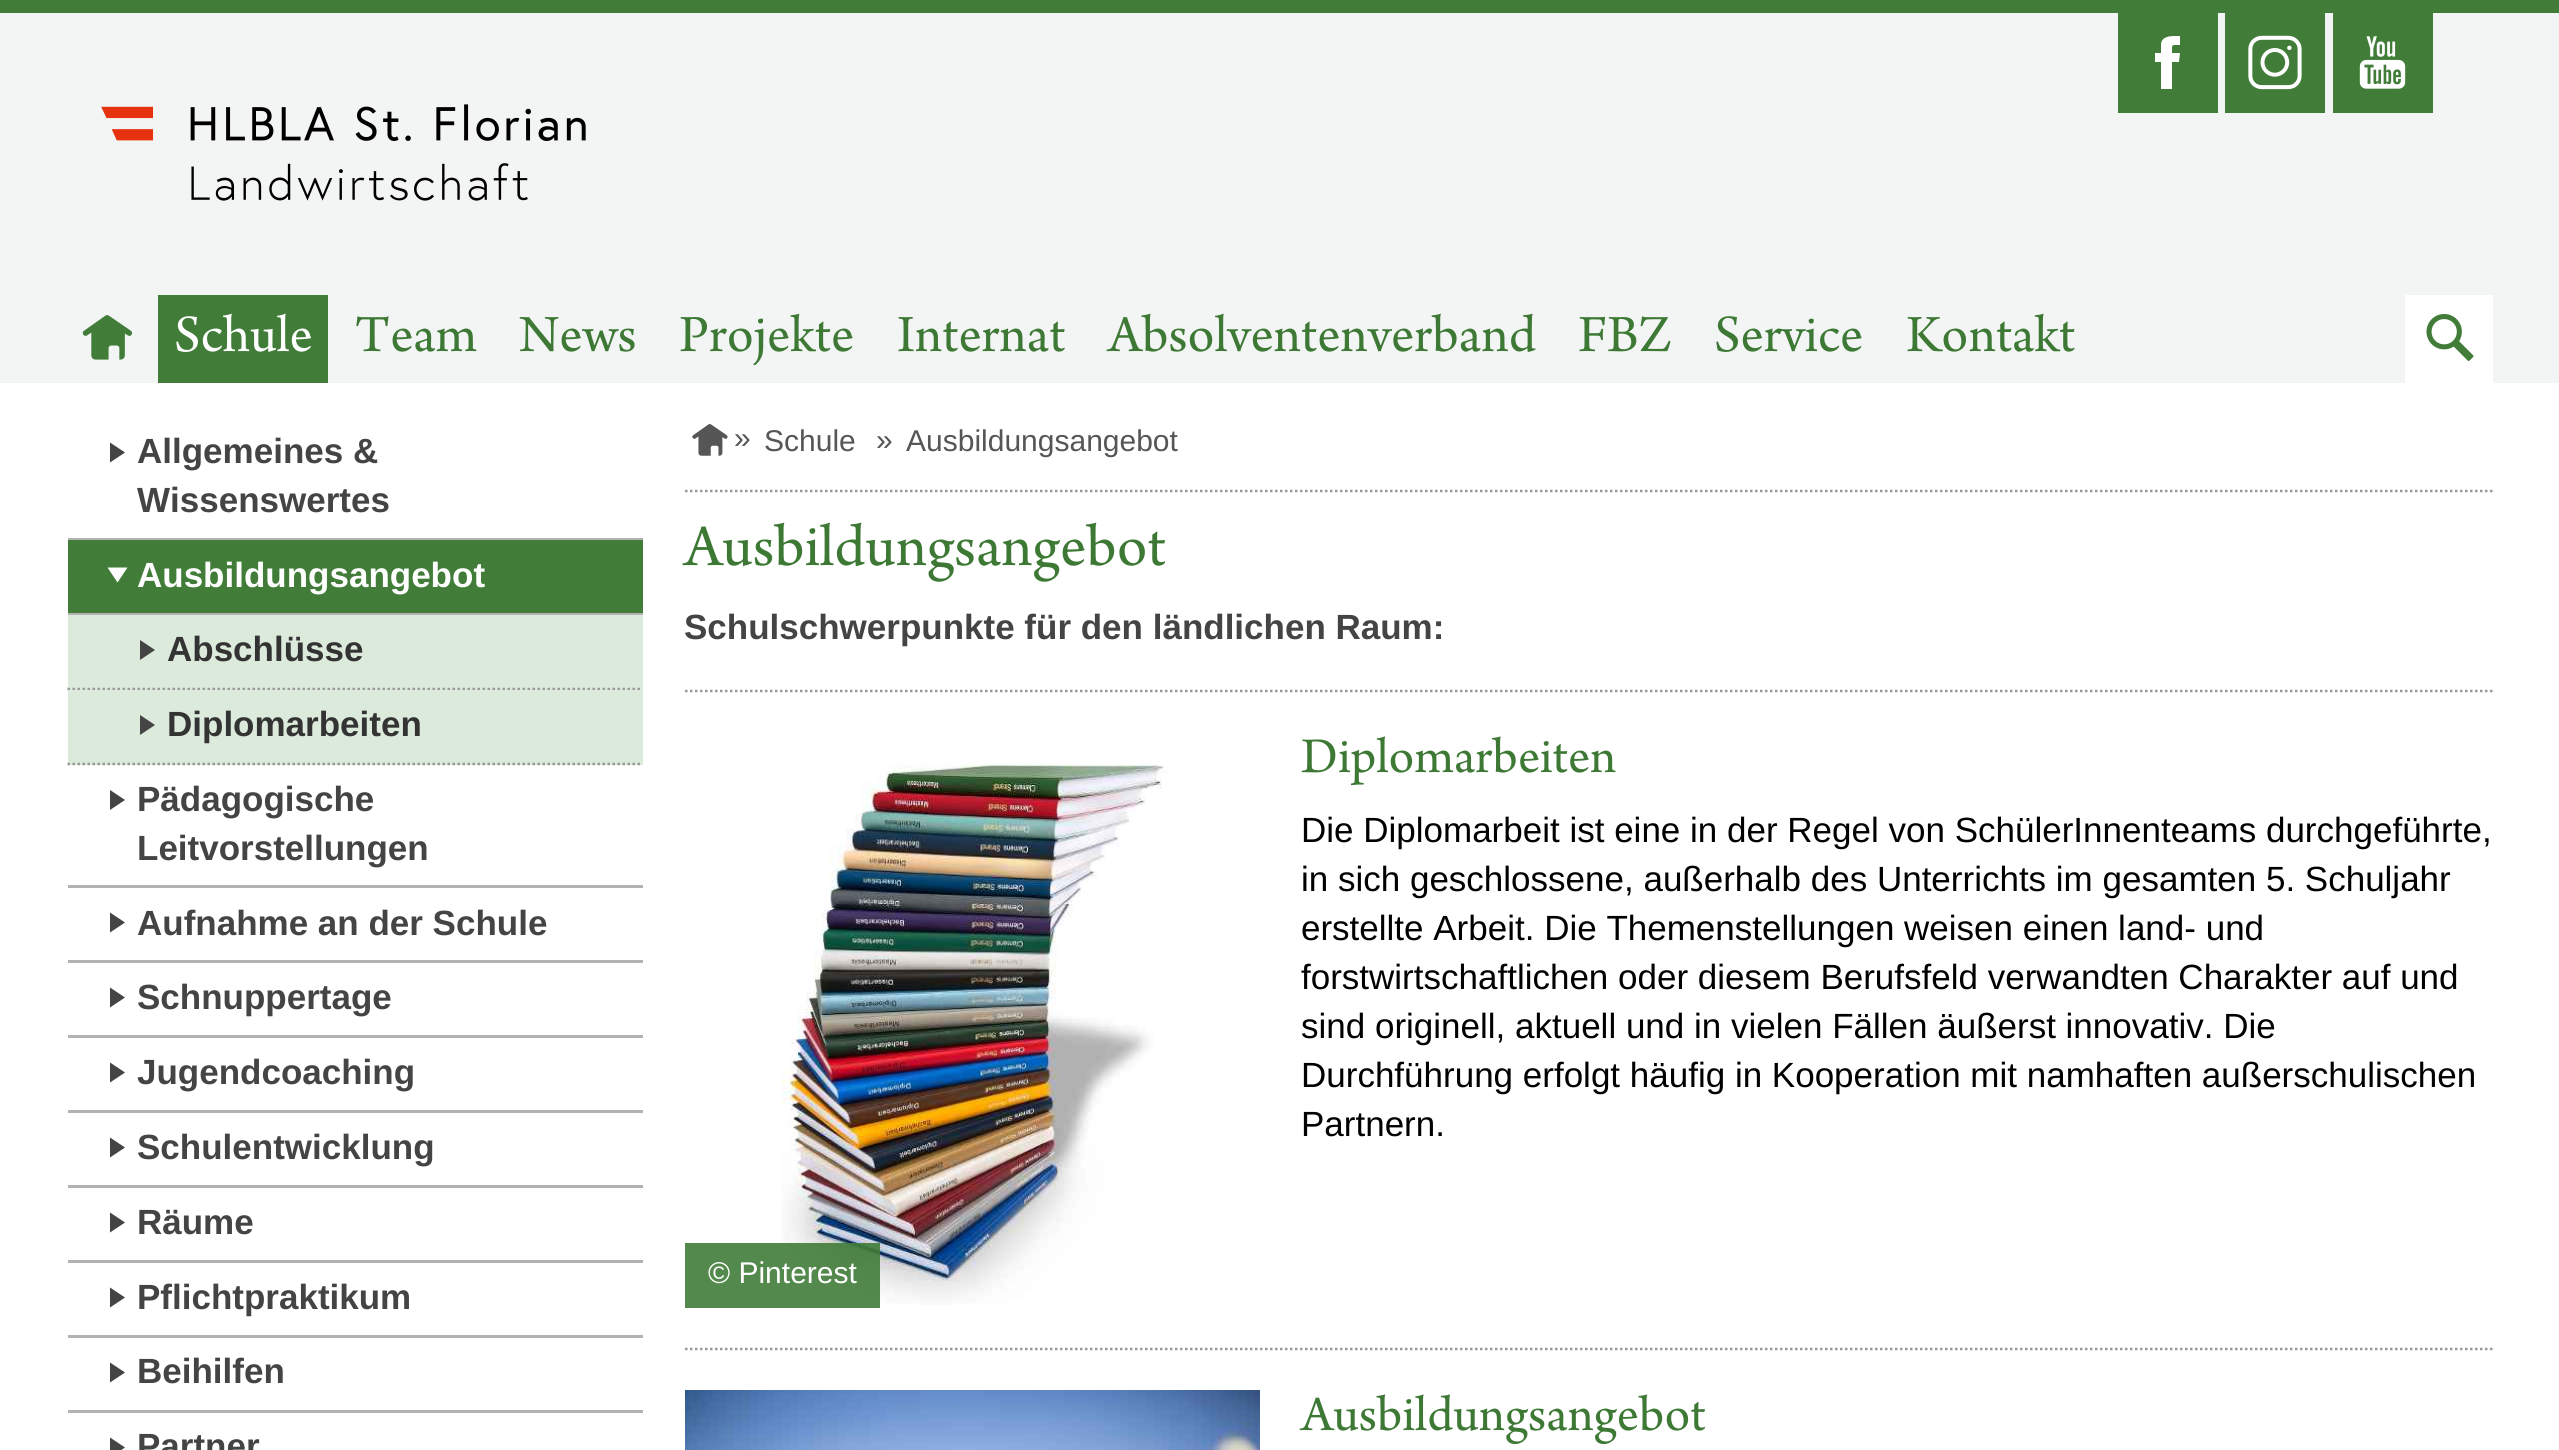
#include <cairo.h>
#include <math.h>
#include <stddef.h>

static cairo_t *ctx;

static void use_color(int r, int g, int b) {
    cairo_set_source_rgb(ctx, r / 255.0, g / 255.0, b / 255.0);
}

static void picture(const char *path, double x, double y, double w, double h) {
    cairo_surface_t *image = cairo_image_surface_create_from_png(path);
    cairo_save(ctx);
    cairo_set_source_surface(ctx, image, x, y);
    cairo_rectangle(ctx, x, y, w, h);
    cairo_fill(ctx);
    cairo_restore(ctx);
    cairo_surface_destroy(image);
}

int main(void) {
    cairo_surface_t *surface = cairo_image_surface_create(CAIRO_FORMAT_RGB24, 2559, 1450);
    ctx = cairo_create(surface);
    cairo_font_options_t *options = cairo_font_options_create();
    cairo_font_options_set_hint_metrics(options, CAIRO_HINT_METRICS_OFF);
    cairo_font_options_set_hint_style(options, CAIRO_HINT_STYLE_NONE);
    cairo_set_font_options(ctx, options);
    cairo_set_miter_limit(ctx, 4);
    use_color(255, 255, 255);
    cairo_paint(ctx);
    use_color(243, 245, 244);
    cairo_rectangle(ctx, 0, 13, 2559, 370);
    cairo_fill(ctx);
    use_color(65, 125, 57);
    cairo_rectangle(ctx, 0, 0, 2559, 13);
    cairo_fill(ctx);
    cairo_rectangle(ctx, 2118, 13, 100, 100);
    cairo_fill(ctx);
    use_color(255, 255, 255);
    cairo_new_path(ctx);
    cairo_move_to(ctx, 2161, 89);
    cairo_line_to(ctx, 2172, 89);
    cairo_line_to(ctx, 2172, 62);
    cairo_line_to(ctx, 2179, 62);
    cairo_line_to(ctx, 2180, 53);
    cairo_line_to(ctx, 2172, 53);
    cairo_curve_to(ctx, 2172, 44, 2171, 45, 2180, 45);
    cairo_line_to(ctx, 2180, 36);
    cairo_curve_to(ctx, 2173, 36, 2162, 35, 2161, 44);
    cairo_line_to(ctx, 2161, 53);
    cairo_line_to(ctx, 2155, 53);
    cairo_line_to(ctx, 2155, 62);
    cairo_line_to(ctx, 2161, 62);
    cairo_close_path(ctx);
    cairo_fill(ctx);
    use_color(65, 125, 57);
    cairo_rectangle(ctx, 2225, 13, 100, 100);
    cairo_fill(ctx);
    picture("img1.png", 2248, 35, 54, 55);
    cairo_rectangle(ctx, 2333, 13, 100, 100);
    cairo_fill(ctx);
    picture("img2.png", 2359, 36, 47, 53);
    picture("img3.png", 101, 104, 485, 97);
    picture("img4.png", 82, 315, 51, 45);
    cairo_rectangle(ctx, 158, 295, 170, 88);
    cairo_fill(ctx);
    cairo_select_font_face(ctx, "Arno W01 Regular", CAIRO_FONT_SLANT_NORMAL, CAIRO_FONT_WEIGHT_NORMAL);
    cairo_set_font_size(ctx, 55);
    use_color(255, 255, 255);
    cairo_move_to(ctx, 174, 351);
    cairo_show_text(ctx, "Schule");
    use_color(61, 121, 53);
    cairo_move_to(ctx, 355, 351);
    cairo_show_text(ctx, "Team");
    cairo_move_to(ctx, 519, 351);
    cairo_show_text(ctx, "News");
    cairo_move_to(ctx, 679, 351);
    cairo_show_text(ctx, "Projekte");
    cairo_move_to(ctx, 897, 351);
    cairo_show_text(ctx, "Internat");
    cairo_move_to(ctx, 1108, 351);
    cairo_show_text(ctx, "Absolventenverband");
    cairo_move_to(ctx, 1578, 351);
    cairo_show_text(ctx, "FBZ");
    cairo_move_to(ctx, 1714, 351);
    cairo_show_text(ctx, "Service");
    cairo_move_to(ctx, 1906, 351);
    cairo_show_text(ctx, "Kontakt");
    use_color(255, 255, 255);
    cairo_rectangle(ctx, 2405, 295, 88, 88);
    cairo_fill(ctx);
    picture("img5.png", 2426, 314, 48, 47);
    use_color(178, 178, 178);
    cairo_rectangle(ctx, 68, 538, 575, 2);
    cairo_fill(ctx);
    use_color(68, 68, 68);
    cairo_new_path(ctx);
    cairo_move_to(ctx, 110, 462.5);
    cairo_line_to(ctx, 110, 442.5);
    cairo_line_to(ctx, 125, 452.5);
    cairo_close_path(ctx);
    cairo_fill(ctx);
    cairo_select_font_face(ctx, "Liberation Sans", CAIRO_FONT_SLANT_NORMAL, CAIRO_FONT_WEIGHT_BOLD);
    cairo_set_font_size(ctx, 35);
    cairo_move_to(ctx, 137, 463);
    cairo_show_text(ctx, "Allgemeines &");
    cairo_move_to(ctx, 137, 512);
    cairo_show_text(ctx, "Wissenswertes");
    use_color(65, 125, 57);
    cairo_rectangle(ctx, 68, 540, 575, 73);
    cairo_fill(ctx);
    use_color(178, 178, 178);
    cairo_rectangle(ctx, 68, 613, 575, 2);
    cairo_fill(ctx);
    use_color(255, 255, 255);
    cairo_new_path(ctx);
    cairo_move_to(ctx, 107.5, 567.5);
    cairo_line_to(ctx, 127.5, 567.5);
    cairo_line_to(ctx, 117.5, 582.5);
    cairo_close_path(ctx);
    cairo_fill(ctx);
    cairo_move_to(ctx, 137, 587);
    cairo_show_text(ctx, "Ausbildungsangebot");
    use_color(220, 234, 219);
    cairo_rectangle(ctx, 68, 615, 575, 75);
    cairo_fill(ctx);
    cairo_new_path(ctx);
    cairo_move_to(ctx, 67.5, 689);
    cairo_line_to(ctx, 642.5, 689);
    use_color(153, 153, 153);
    cairo_set_line_width(ctx, 2.5);
    cairo_set_dash(ctx, (double[]){2.5, 2.5}, 2, 0);
    cairo_stroke(ctx);
    use_color(68, 68, 68);
    cairo_new_path(ctx);
    cairo_move_to(ctx, 140, 660);
    cairo_line_to(ctx, 140, 640);
    cairo_line_to(ctx, 155, 650);
    cairo_close_path(ctx);
    cairo_fill(ctx);
    use_color(51, 51, 51);
    cairo_move_to(ctx, 167, 661);
    cairo_show_text(ctx, "Abschlüsse");
    use_color(220, 234, 219);
    cairo_rectangle(ctx, 68, 690, 575, 75);
    cairo_fill(ctx);
    cairo_new_path(ctx);
    cairo_move_to(ctx, 67.5, 764);
    cairo_line_to(ctx, 642.5, 764);
    use_color(153, 153, 153);
    cairo_stroke(ctx);
    use_color(68, 68, 68);
    cairo_new_path(ctx);
    cairo_move_to(ctx, 140, 735);
    cairo_line_to(ctx, 140, 715);
    cairo_line_to(ctx, 155, 725);
    cairo_close_path(ctx);
    cairo_fill(ctx);
    use_color(51, 51, 51);
    cairo_move_to(ctx, 167, 736);
    cairo_show_text(ctx, "Diplomarbeiten");
    use_color(178, 178, 178);
    cairo_rectangle(ctx, 68, 885, 575, 3);
    cairo_fill(ctx);
    use_color(68, 68, 68);
    cairo_new_path(ctx);
    cairo_move_to(ctx, 110, 810);
    cairo_line_to(ctx, 110, 790);
    cairo_line_to(ctx, 125, 800);
    cairo_close_path(ctx);
    cairo_fill(ctx);
    cairo_move_to(ctx, 137, 811);
    cairo_show_text(ctx, "Pädagogische");
    cairo_move_to(ctx, 137, 860);
    cairo_show_text(ctx, "Leitvorstellungen");
    use_color(178, 178, 178);
    cairo_rectangle(ctx, 68, 960, 575, 3);
    cairo_fill(ctx);
    use_color(68, 68, 68);
    cairo_new_path(ctx);
    cairo_move_to(ctx, 110, 932.5);
    cairo_line_to(ctx, 110, 912.5);
    cairo_line_to(ctx, 125, 922.5);
    cairo_close_path(ctx);
    cairo_fill(ctx);
    cairo_move_to(ctx, 137, 935);
    cairo_show_text(ctx, "Aufnahme an der Schule");
    use_color(178, 178, 178);
    cairo_rectangle(ctx, 68, 1035, 575, 3);
    cairo_fill(ctx);
    use_color(68, 68, 68);
    cairo_new_path(ctx);
    cairo_move_to(ctx, 110, 1007.5);
    cairo_line_to(ctx, 110, 987.5);
    cairo_line_to(ctx, 125, 997.5);
    cairo_close_path(ctx);
    cairo_fill(ctx);
    cairo_move_to(ctx, 137, 1009);
    cairo_show_text(ctx, "Schnuppertage");
    use_color(178, 178, 178);
    cairo_rectangle(ctx, 68, 1110, 575, 3);
    cairo_fill(ctx);
    use_color(68, 68, 68);
    cairo_new_path(ctx);
    cairo_move_to(ctx, 110, 1082.5);
    cairo_line_to(ctx, 110, 1062.5);
    cairo_line_to(ctx, 125, 1072.5);
    cairo_close_path(ctx);
    cairo_fill(ctx);
    cairo_move_to(ctx, 137, 1084);
    cairo_show_text(ctx, "Jugendcoaching");
    use_color(178, 178, 178);
    cairo_rectangle(ctx, 68, 1185, 575, 3);
    cairo_fill(ctx);
    use_color(68, 68, 68);
    cairo_new_path(ctx);
    cairo_move_to(ctx, 110, 1157.5);
    cairo_line_to(ctx, 110, 1137.5);
    cairo_line_to(ctx, 125, 1147.5);
    cairo_close_path(ctx);
    cairo_fill(ctx);
    cairo_move_to(ctx, 137, 1159);
    cairo_show_text(ctx, "Schulentwicklung");
    use_color(178, 178, 178);
    cairo_rectangle(ctx, 68, 1260, 575, 3);
    cairo_fill(ctx);
    use_color(68, 68, 68);
    cairo_new_path(ctx);
    cairo_move_to(ctx, 110, 1232.5);
    cairo_line_to(ctx, 110, 1212.5);
    cairo_line_to(ctx, 125, 1222.5);
    cairo_close_path(ctx);
    cairo_fill(ctx);
    cairo_move_to(ctx, 137, 1234);
    cairo_show_text(ctx, "Räume");
    use_color(178, 178, 178);
    cairo_rectangle(ctx, 68, 1335, 575, 3);
    cairo_fill(ctx);
    use_color(68, 68, 68);
    cairo_new_path(ctx);
    cairo_move_to(ctx, 110, 1307.5);
    cairo_line_to(ctx, 110, 1287.5);
    cairo_line_to(ctx, 125, 1297.5);
    cairo_close_path(ctx);
    cairo_fill(ctx);
    cairo_move_to(ctx, 137, 1309);
    cairo_show_text(ctx, "Pflichtpraktikum");
    use_color(178, 178, 178);
    cairo_rectangle(ctx, 68, 1410, 575, 3);
    cairo_fill(ctx);
    use_color(68, 68, 68);
    cairo_new_path(ctx);
    cairo_move_to(ctx, 110, 1382.5);
    cairo_line_to(ctx, 110, 1362.5);
    cairo_line_to(ctx, 125, 1372.5);
    cairo_close_path(ctx);
    cairo_fill(ctx);
    cairo_move_to(ctx, 137, 1383);
    cairo_show_text(ctx, "Beihilfen");
    cairo_new_path(ctx);
    cairo_move_to(ctx, 110, 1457.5);
    cairo_line_to(ctx, 110, 1437.5);
    cairo_line_to(ctx, 125, 1447.5);
    cairo_close_path(ctx);
    cairo_fill(ctx);
    cairo_move_to(ctx, 137, 1458);
    cairo_show_text(ctx, "Partner");
    cairo_new_path(ctx);
    cairo_move_to(ctx, 685, 491);
    cairo_line_to(ctx, 2492.5, 491);
    use_color(153, 153, 153);
    cairo_stroke(ctx);
    picture("img6.png", 692, 424, 36, 32);
    cairo_select_font_face(ctx, "Liberation Sans", CAIRO_FONT_SLANT_NORMAL, CAIRO_FONT_WEIGHT_NORMAL);
    cairo_set_font_size(ctx, 30);
    use_color(86, 86, 86);
    cairo_move_to(ctx, 734, 448);
    cairo_show_text(ctx, "»");
    cairo_move_to(ctx, 764, 451);
    cairo_show_text(ctx, "Schule");
    cairo_move_to(ctx, 876, 450);
    cairo_show_text(ctx, "»");
    cairo_move_to(ctx, 906, 451);
    cairo_show_text(ctx, "Ausbildungsangebot");
    cairo_new_path(ctx);
    cairo_move_to(ctx, 685, 691);
    cairo_line_to(ctx, 2492.5, 691);
    use_color(153, 153, 153);
    cairo_stroke(ctx);
    cairo_select_font_face(ctx, "Arno W01 Regular", CAIRO_FONT_SLANT_NORMAL, CAIRO_FONT_WEIGHT_NORMAL);
    cairo_set_font_size(ctx, 62.5);
    use_color(61, 121, 53);
    cairo_move_to(ctx, 684, 565);
    cairo_show_text(ctx, "Ausbildungsangebot");
    cairo_select_font_face(ctx, "Liberation Sans", CAIRO_FONT_SLANT_NORMAL, CAIRO_FONT_WEIGHT_BOLD);
    cairo_set_font_size(ctx, 35);
    use_color(68, 68, 68);
    cairo_move_to(ctx, 684, 639);
    cairo_show_text(ctx, "Schulschwerpunkte für den ländlichen Raum:");
    cairo_new_path(ctx);
    cairo_move_to(ctx, 685, 1349);
    cairo_line_to(ctx, 2492.5, 1349);
    use_color(153, 153, 153);
    cairo_stroke(ctx);
    cairo_select_font_face(ctx, "Arno W01 Regular", CAIRO_FONT_SLANT_NORMAL, CAIRO_FONT_WEIGHT_NORMAL);
    cairo_set_font_size(ctx, 52.5);
    use_color(61, 121, 53);
    cairo_move_to(ctx, 1301, 772);
    cairo_show_text(ctx, "Diplomarbeiten");
    cairo_select_font_face(ctx, "Liberation Sans", CAIRO_FONT_SLANT_NORMAL, CAIRO_FONT_WEIGHT_NORMAL);
    cairo_set_font_size(ctx, 35);
    use_color(0, 0, 0);
    cairo_move_to(ctx, 1301, 842);
    cairo_show_text(ctx, "Die Diplomarbeit ist eine in der Regel von SchülerInnenteams durchgeführte,");
    cairo_move_to(ctx, 1301, 891);
    cairo_show_text(ctx, "in sich geschlossene, außerhalb des Unterrichts im gesamten 5. Schuljahr");
    cairo_move_to(ctx, 1301, 940);
    cairo_show_text(ctx, "erstellte Arbeit. Die Themenstellungen weisen einen land- und");
    cairo_move_to(ctx, 1301, 989);
    cairo_show_text(ctx, "forstwirtschaftlichen oder diesem Berufsfeld verwandten Charakter auf und");
    cairo_move_to(ctx, 1301, 1038);
    cairo_show_text(ctx, "sind originell, aktuell und in vielen Fällen äußerst innovativ. Die");
    cairo_move_to(ctx, 1301, 1087);
    cairo_show_text(ctx, "Durchführung erfolgt häufig in Kooperation mit namhaften außerschulischen");
    cairo_move_to(ctx, 1301, 1136);
    cairo_show_text(ctx, "Partnern.");
    picture("img7.png", 781, 764, 388, 541);
    cairo_set_source_rgba(ctx, 0.255, 0.49, 0.224, 0.9);
    cairo_rectangle(ctx, 685, 1243, 195, 65);
    cairo_fill(ctx);
    cairo_set_font_size(ctx, 30);
    use_color(255, 255, 255);
    cairo_move_to(ctx, 708, 1283);
    cairo_show_text(ctx, "© Pinterest");
    picture("img8.png", 685, 1390, 575, 60);
    cairo_select_font_face(ctx, "Arno W01 Regular", CAIRO_FONT_SLANT_NORMAL, CAIRO_FONT_WEIGHT_NORMAL);
    cairo_set_font_size(ctx, 52.5);
    use_color(61, 121, 53);
    cairo_move_to(ctx, 1301, 1430);
    cairo_show_text(ctx, "Ausbildungsangebot");
    cairo_surface_write_to_png(surface, "result.png");
    cairo_font_options_destroy(options);
    cairo_destroy(ctx);
    cairo_surface_destroy(surface);
    return 0;
}
